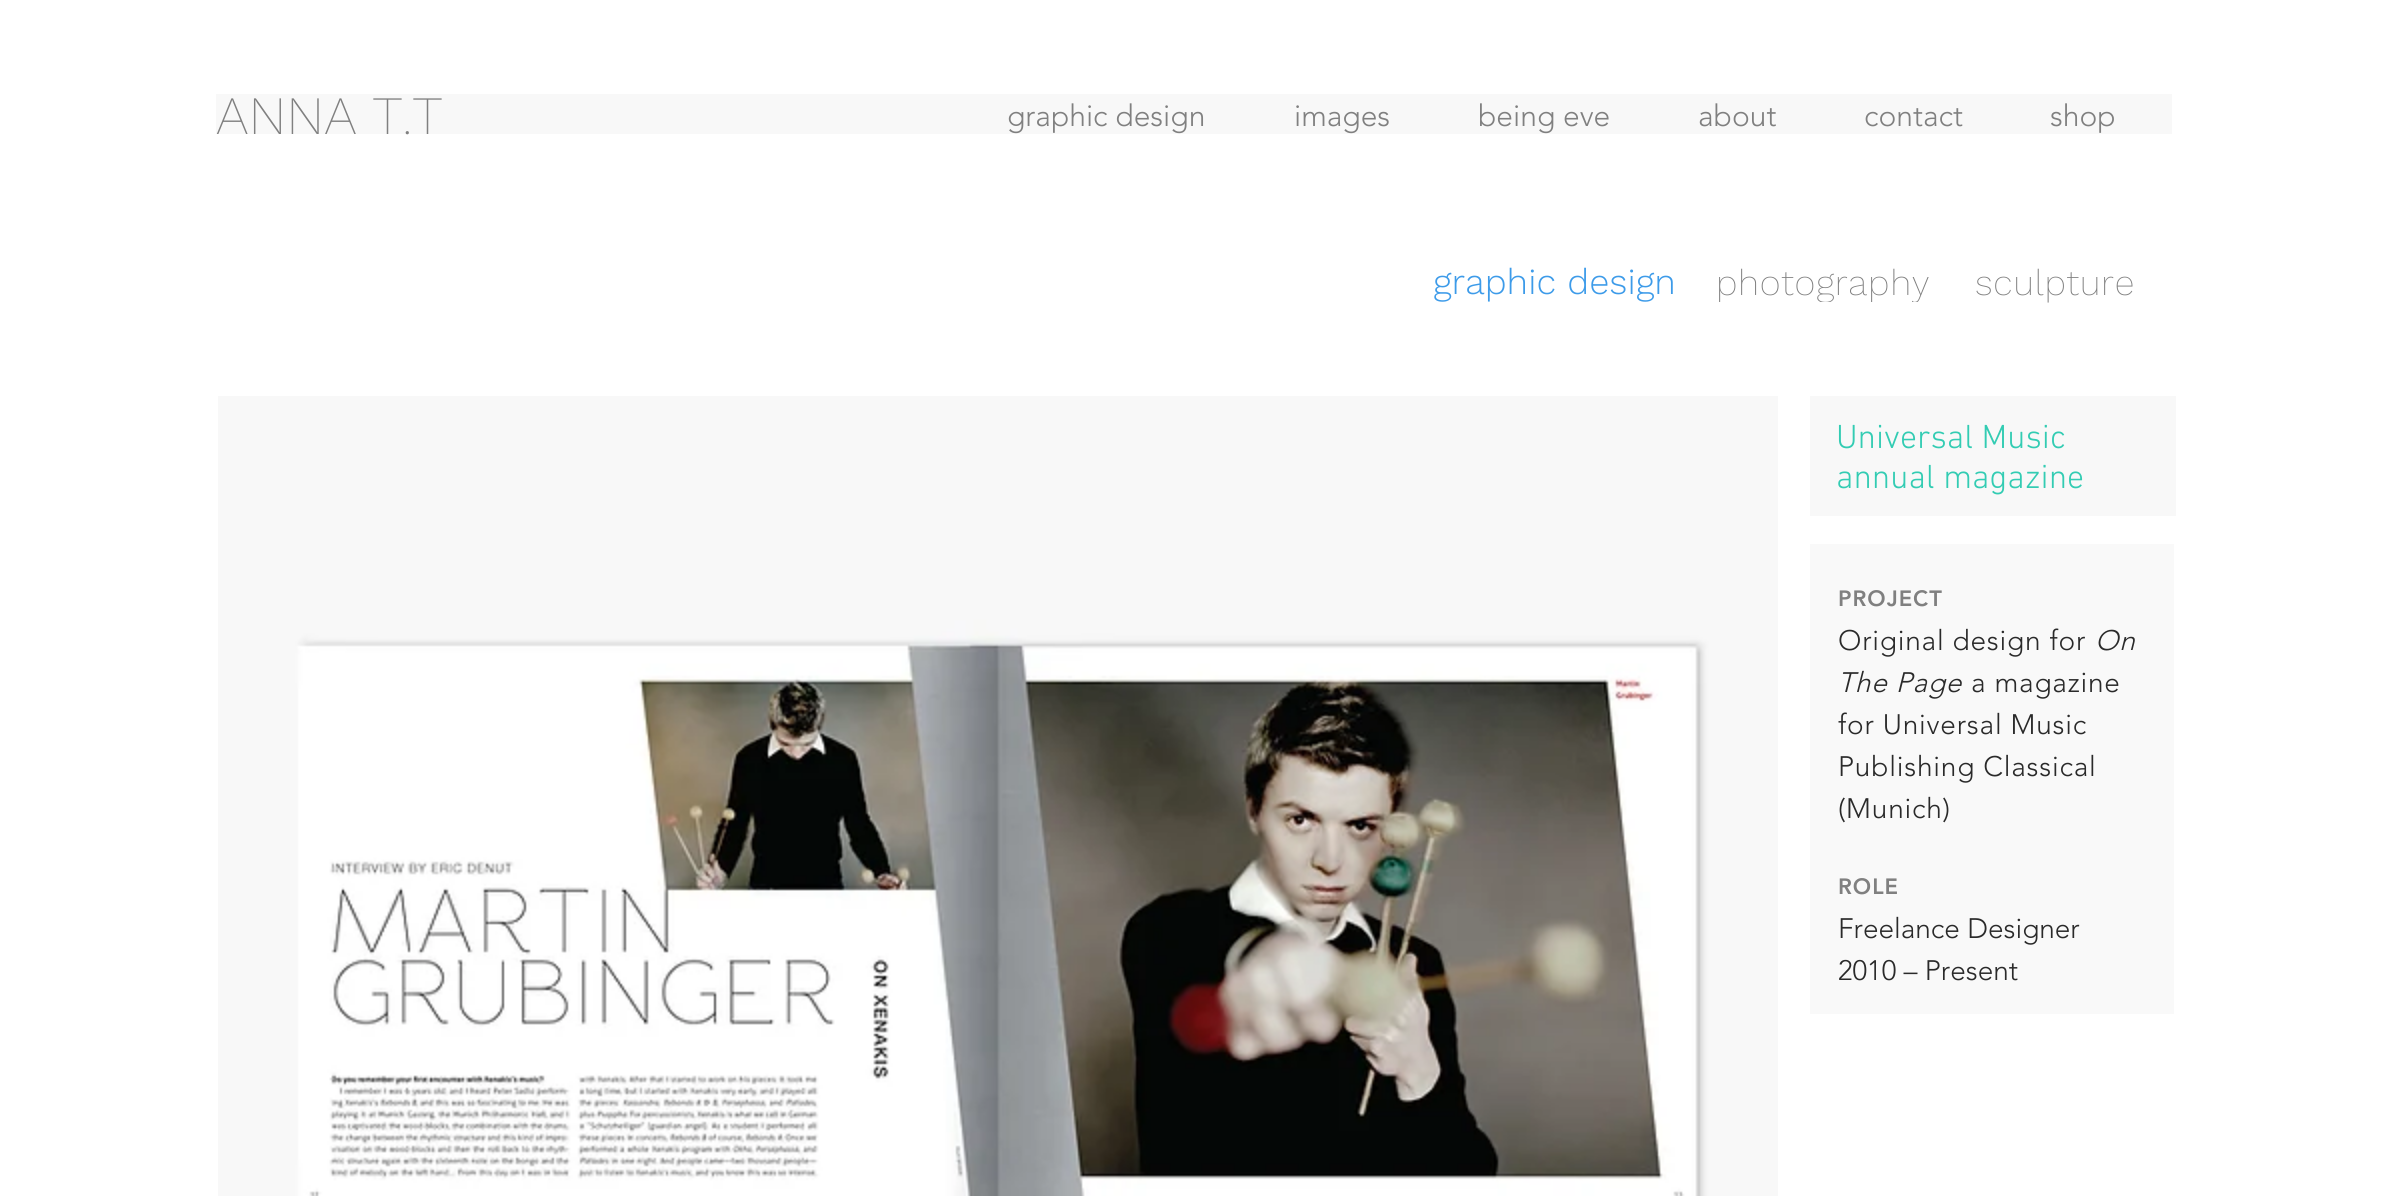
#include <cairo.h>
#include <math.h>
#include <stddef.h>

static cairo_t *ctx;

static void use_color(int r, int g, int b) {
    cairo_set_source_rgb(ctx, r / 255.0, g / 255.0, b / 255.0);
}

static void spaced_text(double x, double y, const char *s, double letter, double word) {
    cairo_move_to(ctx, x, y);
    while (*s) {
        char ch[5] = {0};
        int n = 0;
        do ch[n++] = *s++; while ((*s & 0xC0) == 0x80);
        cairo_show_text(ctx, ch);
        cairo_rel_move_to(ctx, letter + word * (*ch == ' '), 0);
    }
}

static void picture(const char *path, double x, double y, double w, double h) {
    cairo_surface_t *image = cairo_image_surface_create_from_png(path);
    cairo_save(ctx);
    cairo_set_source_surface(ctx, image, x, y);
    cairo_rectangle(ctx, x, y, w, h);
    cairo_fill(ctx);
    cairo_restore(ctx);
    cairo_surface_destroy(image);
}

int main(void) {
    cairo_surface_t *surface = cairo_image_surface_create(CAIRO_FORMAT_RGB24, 2392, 1196);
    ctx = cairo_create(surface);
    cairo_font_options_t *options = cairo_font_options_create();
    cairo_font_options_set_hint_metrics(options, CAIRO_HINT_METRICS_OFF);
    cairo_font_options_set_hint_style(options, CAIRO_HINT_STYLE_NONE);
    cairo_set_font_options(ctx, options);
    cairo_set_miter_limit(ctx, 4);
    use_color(255, 255, 255);
    cairo_paint(ctx);
    use_color(248, 248, 248);
    cairo_rectangle(ctx, 216, 94, 1956, 40);
    cairo_fill(ctx);
    cairo_select_font_face(ctx, "Work Sans ExtraLight", CAIRO_FONT_SLANT_NORMAL, CAIRO_FONT_WEIGHT_NORMAL);
    cairo_set_font_size(ctx, 54);
    use_color(128, 128, 128);
    cairo_move_to(ctx, 216, 134);
    cairo_show_text(ctx, "ANNA T.T");
    cairo_select_font_face(ctx, "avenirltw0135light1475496 Light", CAIRO_FONT_SLANT_NORMAL, CAIRO_FONT_WEIGHT_NORMAL);
    cairo_set_font_size(ctx, 30);
    cairo_move_to(ctx, 1007, 126);
    cairo_show_text(ctx, "graphic design");
    cairo_move_to(ctx, 1294, 126);
    cairo_show_text(ctx, "images");
    cairo_move_to(ctx, 1478, 126);
    cairo_show_text(ctx, "being eve");
    cairo_move_to(ctx, 1698, 126);
    cairo_show_text(ctx, "about");
    cairo_move_to(ctx, 1864, 126);
    cairo_show_text(ctx, "contact");
    cairo_move_to(ctx, 2050, 126);
    cairo_show_text(ctx, "shop");
    cairo_select_font_face(ctx, "Work Sans Light", CAIRO_FONT_SLANT_NORMAL, CAIRO_FONT_WEIGHT_NORMAL);
    cairo_set_font_size(ctx, 36);
    use_color(61, 155, 233);
    cairo_move_to(ctx, 1433, 294);
    cairo_show_text(ctx, "graphic design");
    cairo_save(ctx);
    cairo_rectangle(ctx, 1716, 262, 214, 40);
    cairo_clip(ctx);
    cairo_select_font_face(ctx, "Work Sans ExtraLight", CAIRO_FONT_SLANT_NORMAL, CAIRO_FONT_WEIGHT_NORMAL);
    use_color(128, 128, 128);
    spaced_text(1716, 295, "photography", 0.75, 0);
    cairo_restore(ctx);
    cairo_select_font_face(ctx, "Work Sans ExtraLight", CAIRO_FONT_SLANT_NORMAL, CAIRO_FONT_WEIGHT_NORMAL);
    use_color(128, 128, 128);
    spaced_text(1975, 295, "sculpture", 0.75, 0);
    picture("img1.png", 218, 396, 1560, 800);
    use_color(248, 248, 248);
    cairo_rectangle(ctx, 1810, 396, 366, 120);
    cairo_fill(ctx);
    cairo_select_font_face(ctx, "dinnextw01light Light", CAIRO_FONT_SLANT_NORMAL, CAIRO_FONT_WEIGHT_NORMAL);
    cairo_set_font_size(ctx, 34);
    use_color(51, 204, 179);
    cairo_move_to(ctx, 1836, 448);
    cairo_show_text(ctx, "Universal Music");
    cairo_move_to(ctx, 1836, 488);
    cairo_show_text(ctx, "annual magazine");
    use_color(249, 249, 249);
    cairo_rectangle(ctx, 1810, 544, 364, 470);
    cairo_fill(ctx);
    cairo_select_font_face(ctx, "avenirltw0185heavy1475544 Black", CAIRO_FONT_SLANT_NORMAL, CAIRO_FONT_WEIGHT_NORMAL);
    cairo_set_font_size(ctx, 22);
    use_color(128, 128, 128);
    spaced_text(1838, 606, "PROJECT", 1, 0);
    cairo_select_font_face(ctx, "avenirltw0135light1475496 Light", CAIRO_FONT_SLANT_NORMAL, CAIRO_FONT_WEIGHT_NORMAL);
    cairo_set_font_size(ctx, 28);
    use_color(42, 42, 42);
    spaced_text(1838, 650, "Original design for", 0.8, 0);
    cairo_select_font_face(ctx, "avenirltw0135light1475496 Light", CAIRO_FONT_SLANT_ITALIC, CAIRO_FONT_WEIGHT_NORMAL);
    spaced_text(2095, 650, "On", 0.8, 0);
    spaced_text(1838, 692, "The Page", 0.8, 0);
    cairo_select_font_face(ctx, "avenirltw0135light1475496 Light", CAIRO_FONT_SLANT_NORMAL, CAIRO_FONT_WEIGHT_NORMAL);
    spaced_text(1971, 692, "a magazine", 0.8, 0);
    spaced_text(1838, 734, "for Universal Music", 0.8, 0);
    spaced_text(1838, 776, "Publishing Classical", 0.8, 0);
    spaced_text(1838, 818, "(Munich)", 0.8, 0);
    cairo_select_font_face(ctx, "avenirltw0185heavy1475544 Black", CAIRO_FONT_SLANT_NORMAL, CAIRO_FONT_WEIGHT_NORMAL);
    cairo_set_font_size(ctx, 22);
    use_color(128, 128, 128);
    spaced_text(1838, 894, "ROLE", 1, 0);
    cairo_select_font_face(ctx, "avenirltw0135light1475496 Light", CAIRO_FONT_SLANT_NORMAL, CAIRO_FONT_WEIGHT_NORMAL);
    cairo_set_font_size(ctx, 28);
    use_color(42, 42, 42);
    cairo_move_to(ctx, 1838, 938);
    cairo_show_text(ctx, "Freelance Designer");
    cairo_move_to(ctx, 1838, 980);
    cairo_show_text(ctx, "2010 – Present");
    cairo_surface_write_to_png(surface, "result.png");
    cairo_font_options_destroy(options);
    cairo_destroy(ctx);
    cairo_surface_destroy(surface);
    return 0;
}
